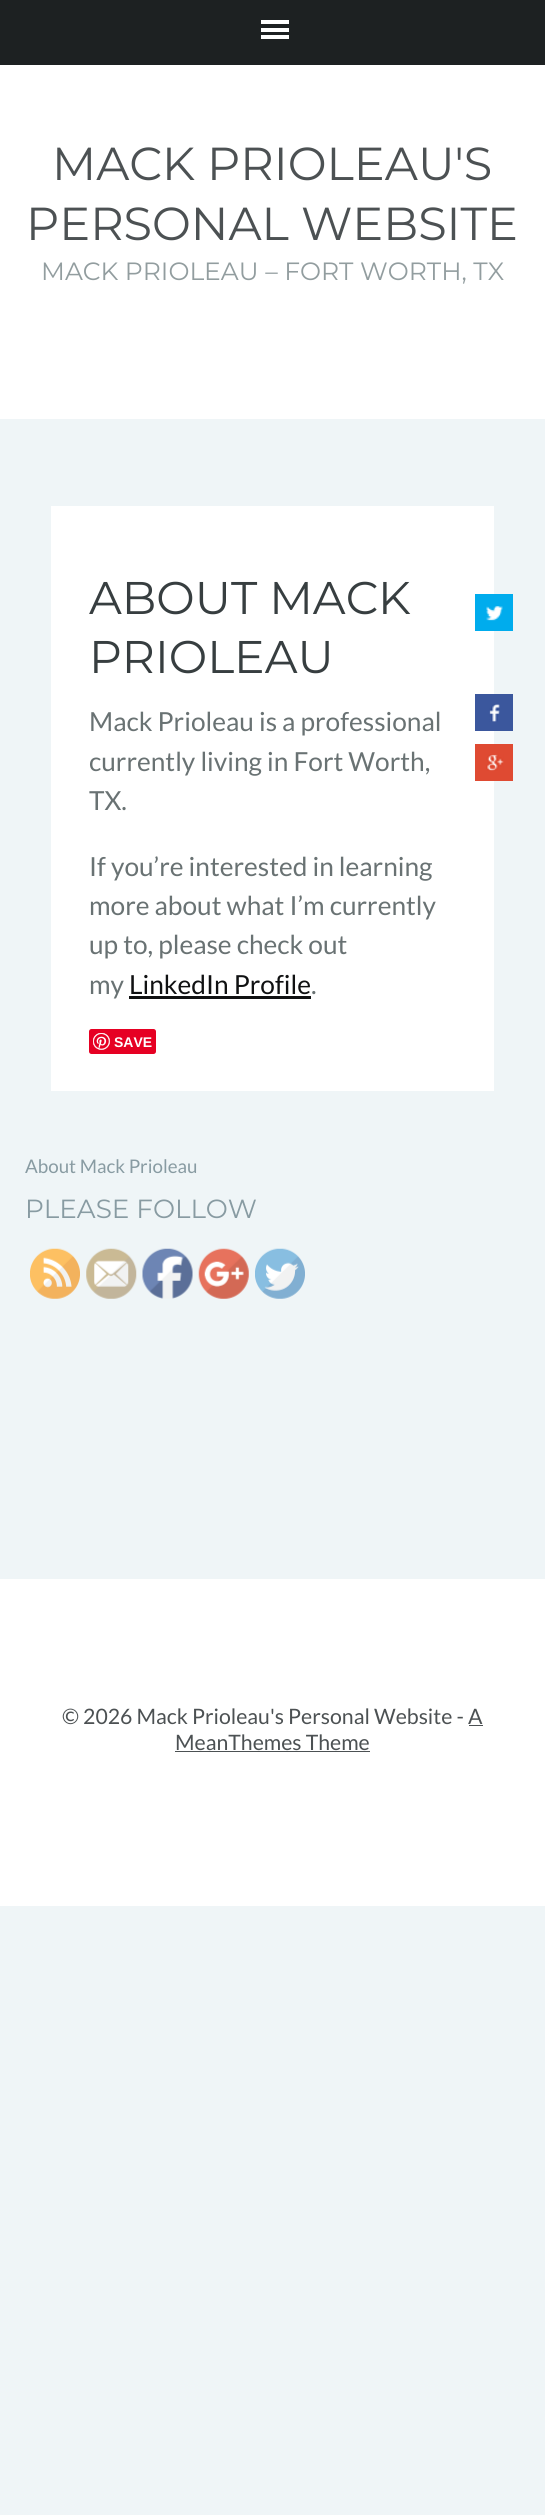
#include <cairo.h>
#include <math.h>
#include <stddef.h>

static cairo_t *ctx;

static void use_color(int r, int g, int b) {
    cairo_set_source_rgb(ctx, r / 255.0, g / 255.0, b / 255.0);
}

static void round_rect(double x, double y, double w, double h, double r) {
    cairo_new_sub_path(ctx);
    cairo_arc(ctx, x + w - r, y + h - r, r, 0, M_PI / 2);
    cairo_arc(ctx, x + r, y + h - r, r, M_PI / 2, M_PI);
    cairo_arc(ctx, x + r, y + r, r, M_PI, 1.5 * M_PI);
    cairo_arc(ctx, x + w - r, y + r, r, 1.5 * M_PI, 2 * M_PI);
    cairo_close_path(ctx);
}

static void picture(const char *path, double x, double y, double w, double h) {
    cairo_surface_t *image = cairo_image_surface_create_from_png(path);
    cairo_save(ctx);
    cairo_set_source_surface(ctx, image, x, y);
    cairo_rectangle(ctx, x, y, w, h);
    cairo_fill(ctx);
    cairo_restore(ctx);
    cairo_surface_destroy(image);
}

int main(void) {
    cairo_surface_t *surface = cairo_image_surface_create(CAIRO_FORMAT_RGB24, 545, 2515);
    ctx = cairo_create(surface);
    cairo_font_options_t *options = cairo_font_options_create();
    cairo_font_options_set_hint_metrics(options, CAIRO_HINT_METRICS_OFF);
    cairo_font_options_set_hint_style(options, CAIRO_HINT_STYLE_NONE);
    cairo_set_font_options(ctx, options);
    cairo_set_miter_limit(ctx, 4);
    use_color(239, 245, 247);
    cairo_paint(ctx);
    use_color(29, 33, 34);
    cairo_rectangle(ctx, 0, 0, 545, 65);
    cairo_fill(ctx);
    use_color(255, 255, 255);
    cairo_rectangle(ctx, 261, 20, 28, 4);
    cairo_fill(ctx);
    cairo_rectangle(ctx, 261, 28, 28, 4);
    cairo_fill(ctx);
    cairo_rectangle(ctx, 261, 35, 28, 4);
    cairo_fill(ctx);
    cairo_rectangle(ctx, 0, 65, 545, 354);
    cairo_fill(ctx);
    cairo_select_font_face(ctx, "Montserrat", CAIRO_FONT_SLANT_NORMAL, CAIRO_FONT_WEIGHT_NORMAL);
    cairo_set_font_size(ctx, 46.25);
    use_color(76, 81, 83);
    cairo_move_to(ctx, 52, 180);
    cairo_show_text(ctx, "MACK PRIOLEAU'S");
    cairo_move_to(ctx, 26, 240);
    cairo_show_text(ctx, "PERSONAL WEBSITE");
    cairo_set_font_size(ctx, 25);
    use_color(146, 157, 159);
    cairo_move_to(ctx, 41, 280);
    cairo_show_text(ctx, "MACK PRIOLEAU – FORT WORTH, TX");
    use_color(255, 255, 255);
    cairo_rectangle(ctx, 51, 506, 443, 585);
    cairo_fill(ctx);
    cairo_set_font_size(ctx, 45.75);
    use_color(55, 62, 64);
    cairo_move_to(ctx, 89, 614);
    cairo_show_text(ctx, "ABOUT MACK");
    cairo_move_to(ctx, 89, 673);
    cairo_show_text(ctx, "PRIOLEAU");
    cairo_select_font_face(ctx, "Lato", CAIRO_FONT_SLANT_NORMAL, CAIRO_FONT_WEIGHT_NORMAL);
    cairo_set_font_size(ctx, 26.25);
    use_color(105, 114, 115);
    cairo_move_to(ctx, 89, 731);
    cairo_show_text(ctx, "Mack Prioleau is a professional");
    cairo_move_to(ctx, 89, 771);
    cairo_show_text(ctx, "currently living in Fort Worth,");
    cairo_move_to(ctx, 89, 810);
    cairo_show_text(ctx, "TX.");
    cairo_move_to(ctx, 89, 876);
    cairo_show_text(ctx, "If you’re interested in learning");
    cairo_move_to(ctx, 89, 915);
    cairo_show_text(ctx, "more about what I’m currently");
    cairo_move_to(ctx, 89, 954);
    cairo_show_text(ctx, "up to, please check out");
    cairo_move_to(ctx, 89, 994);
    cairo_show_text(ctx, "my");
    use_color(16, 17, 18);
    cairo_move_to(ctx, 129, 994);
    cairo_show_text(ctx, "LinkedIn Profile");
    cairo_rectangle(ctx, 129, 996, 182, 3);
    cairo_fill(ctx);
    use_color(105, 114, 115);
    cairo_move_to(ctx, 311, 994);
    cairo_show_text(ctx, ".");
    use_color(0, 172, 237);
    cairo_rectangle(ctx, 475, 594, 38, 37);
    cairo_fill(ctx);
    picture("img1.png", 486, 606, 17, 15);
    use_color(59, 87, 157);
    cairo_rectangle(ctx, 475, 694, 38, 37);
    cairo_fill(ctx);
    picture("img2.png", 489, 704, 11, 18);
    use_color(223, 74, 50);
    cairo_rectangle(ctx, 475, 744, 38, 37);
    cairo_fill(ctx);
    picture("img3.png", 486, 754, 18, 17);
    use_color(230, 0, 35);
    round_rect(89, 1029, 67, 25, 2.5);
    cairo_fill(ctx);
    picture("img4.png", 93, 1033, 17, 17);
    cairo_select_font_face(ctx, "Liberation Sans", CAIRO_FONT_SLANT_NORMAL, CAIRO_FONT_WEIGHT_BOLD);
    cairo_set_font_size(ctx, 14);
    use_color(255, 255, 255);
    cairo_move_to(ctx, 114, 1047);
    cairo_show_text(ctx, "SAVE");
    cairo_select_font_face(ctx, "Lato", CAIRO_FONT_SLANT_NORMAL, CAIRO_FONT_WEIGHT_NORMAL);
    cairo_set_font_size(ctx, 18.75);
    use_color(136, 155, 162);
    cairo_move_to(ctx, 25, 1173);
    cairo_show_text(ctx, "About Mack Prioleau");
    cairo_select_font_face(ctx, "Montserrat", CAIRO_FONT_SLANT_NORMAL, CAIRO_FONT_WEIGHT_NORMAL);
    cairo_set_font_size(ctx, 26.25);
    cairo_move_to(ctx, 25, 1218);
    cairo_show_text(ctx, "PLEASE FOLLOW");
    picture("img5.png", 30, 1248, 50, 51);
    picture("img6.png", 86, 1248, 51, 51);
    picture("img7.png", 142, 1248, 51, 51);
    picture("img8.png", 198, 1248, 51, 51);
    picture("img9.png", 255, 1248, 50, 51);
    use_color(255, 255, 255);
    cairo_rectangle(ctx, 0, 1579, 545, 327);
    cairo_fill(ctx);
    cairo_select_font_face(ctx, "Lato", CAIRO_FONT_SLANT_NORMAL, CAIRO_FONT_WEIGHT_NORMAL);
    cairo_set_font_size(ctx, 21.25);
    use_color(76, 81, 83);
    cairo_move_to(ctx, 62, 1724);
    cairo_show_text(ctx, "© 2026 Mack Prioleau's Personal Website - A");
    cairo_move_to(ctx, 175, 1750);
    cairo_show_text(ctx, "MeanThemes Theme");
    cairo_rectangle(ctx, 469, 1725, 14, 1);
    cairo_fill(ctx);
    cairo_rectangle(ctx, 175, 1751, 195, 1);
    cairo_fill(ctx);
    cairo_surface_write_to_png(surface, "result.png");
    cairo_font_options_destroy(options);
    cairo_destroy(ctx);
    cairo_surface_destroy(surface);
    return 0;
}
